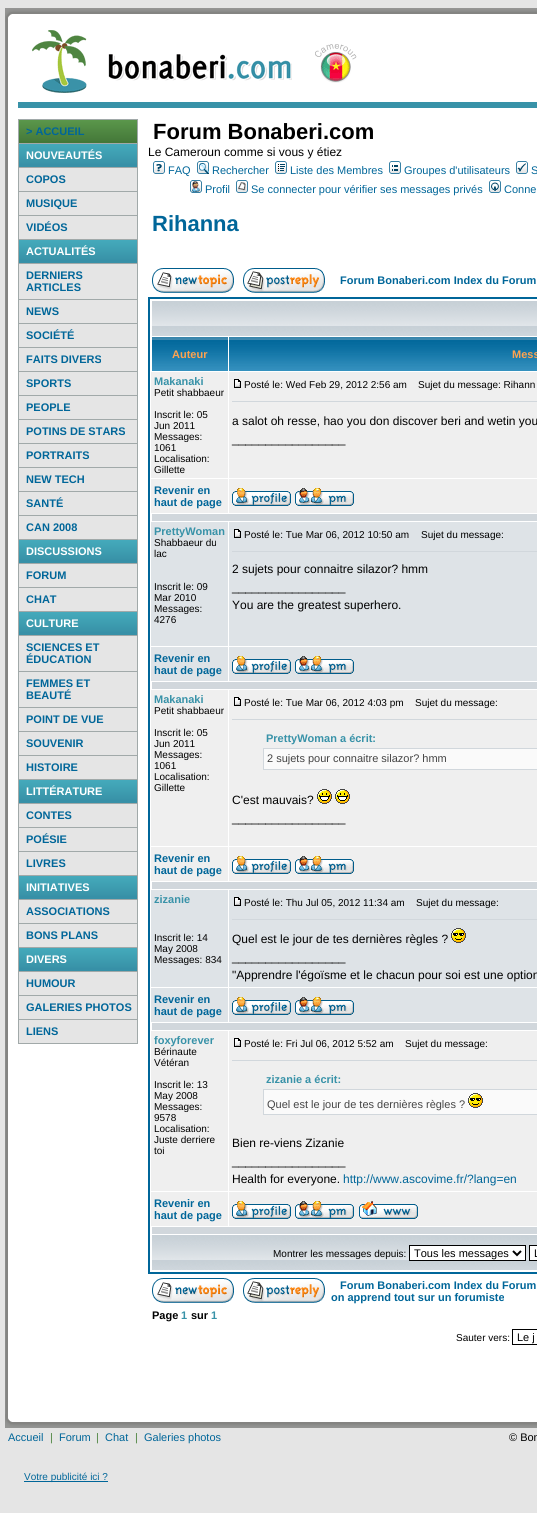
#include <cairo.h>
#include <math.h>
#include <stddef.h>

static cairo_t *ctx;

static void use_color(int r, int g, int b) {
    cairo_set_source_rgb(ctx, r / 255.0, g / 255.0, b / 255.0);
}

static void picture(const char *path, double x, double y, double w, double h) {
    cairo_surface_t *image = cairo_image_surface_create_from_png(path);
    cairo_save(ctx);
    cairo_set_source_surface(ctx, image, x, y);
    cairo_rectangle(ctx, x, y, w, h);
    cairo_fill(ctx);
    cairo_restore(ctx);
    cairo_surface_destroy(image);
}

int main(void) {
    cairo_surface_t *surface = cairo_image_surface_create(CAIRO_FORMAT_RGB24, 537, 1513);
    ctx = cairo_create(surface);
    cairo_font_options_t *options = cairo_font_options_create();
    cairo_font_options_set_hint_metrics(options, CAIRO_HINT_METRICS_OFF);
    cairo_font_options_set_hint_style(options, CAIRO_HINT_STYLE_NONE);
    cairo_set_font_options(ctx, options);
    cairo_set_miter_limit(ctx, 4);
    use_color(229, 229, 229);
    cairo_paint(ctx);
    picture("img1.png", 5, 8, 532, 14);
    picture("img2.png", 5, 22, 532, 1392);
    picture("img3.png", 32, 30, 325, 63);
    use_color(56, 146, 168);
    cairo_rectangle(ctx, 18, 102, 519, 6);
    cairo_fill(ctx);
    use_color(161, 169, 169);
    cairo_rectangle(ctx, 18, 119, 120, 1);
    cairo_fill(ctx);
    cairo_rectangle(ctx, 137, 119, 1, 925);
    cairo_fill(ctx);
    cairo_rectangle(ctx, 18, 119, 1, 925);
    cairo_fill(ctx);
    picture("img4.png", 19, 120, 118, 23);
    cairo_rectangle(ctx, 19, 143, 118, 1);
    cairo_fill(ctx);
    cairo_select_font_face(ctx, "Liberation Sans", CAIRO_FONT_SLANT_NORMAL, CAIRO_FONT_WEIGHT_BOLD);
    cairo_set_font_size(ctx, 11);
    use_color(0, 102, 153);
    cairo_move_to(ctx, 26, 135);
    cairo_show_text(ctx, "> ACCUEIL");
    picture("img5.png", 19, 144, 118, 23);
    use_color(161, 169, 169);
    cairo_rectangle(ctx, 19, 167, 118, 1);
    cairo_fill(ctx);
    use_color(255, 255, 255);
    cairo_move_to(ctx, 26, 159);
    cairo_show_text(ctx, "NOUVEAUTÉS");
    use_color(229, 229, 229);
    cairo_rectangle(ctx, 19, 168, 118, 23);
    cairo_fill(ctx);
    use_color(161, 169, 169);
    cairo_rectangle(ctx, 19, 191, 118, 1);
    cairo_fill(ctx);
    use_color(0, 102, 153);
    cairo_move_to(ctx, 26, 183);
    cairo_show_text(ctx, "COPOS");
    use_color(229, 229, 229);
    cairo_rectangle(ctx, 19, 192, 118, 23);
    cairo_fill(ctx);
    use_color(161, 169, 169);
    cairo_rectangle(ctx, 19, 215, 118, 1);
    cairo_fill(ctx);
    use_color(0, 102, 153);
    cairo_move_to(ctx, 26, 207);
    cairo_show_text(ctx, "MUSIQUE");
    use_color(229, 229, 229);
    cairo_rectangle(ctx, 19, 216, 118, 23);
    cairo_fill(ctx);
    use_color(161, 169, 169);
    cairo_rectangle(ctx, 19, 239, 118, 1);
    cairo_fill(ctx);
    use_color(0, 102, 153);
    cairo_move_to(ctx, 26, 231);
    cairo_show_text(ctx, "VIDÉOS");
    picture("img5.png", 19, 240, 118, 23);
    use_color(161, 169, 169);
    cairo_rectangle(ctx, 19, 263, 118, 1);
    cairo_fill(ctx);
    use_color(255, 255, 255);
    cairo_move_to(ctx, 26, 255);
    cairo_show_text(ctx, "ACTUALITÉS");
    use_color(229, 229, 229);
    cairo_rectangle(ctx, 19, 264, 118, 35);
    cairo_fill(ctx);
    use_color(161, 169, 169);
    cairo_rectangle(ctx, 19, 299, 118, 1);
    cairo_fill(ctx);
    use_color(0, 102, 153);
    cairo_move_to(ctx, 26, 279);
    cairo_show_text(ctx, "DERNIERS");
    cairo_move_to(ctx, 26, 291);
    cairo_show_text(ctx, "ARTICLES");
    use_color(229, 229, 229);
    cairo_rectangle(ctx, 19, 300, 118, 23);
    cairo_fill(ctx);
    use_color(161, 169, 169);
    cairo_rectangle(ctx, 19, 323, 118, 1);
    cairo_fill(ctx);
    use_color(0, 102, 153);
    cairo_move_to(ctx, 26, 315);
    cairo_show_text(ctx, "NEWS");
    use_color(229, 229, 229);
    cairo_rectangle(ctx, 19, 324, 118, 23);
    cairo_fill(ctx);
    use_color(161, 169, 169);
    cairo_rectangle(ctx, 19, 347, 118, 1);
    cairo_fill(ctx);
    use_color(0, 102, 153);
    cairo_move_to(ctx, 26, 339);
    cairo_show_text(ctx, "SOCIÉTÉ");
    use_color(229, 229, 229);
    cairo_rectangle(ctx, 19, 348, 118, 23);
    cairo_fill(ctx);
    use_color(161, 169, 169);
    cairo_rectangle(ctx, 19, 371, 118, 1);
    cairo_fill(ctx);
    use_color(0, 102, 153);
    cairo_move_to(ctx, 26, 363);
    cairo_show_text(ctx, "FAITS DIVERS");
    use_color(229, 229, 229);
    cairo_rectangle(ctx, 19, 372, 118, 23);
    cairo_fill(ctx);
    use_color(161, 169, 169);
    cairo_rectangle(ctx, 19, 395, 118, 1);
    cairo_fill(ctx);
    use_color(0, 102, 153);
    cairo_move_to(ctx, 26, 387);
    cairo_show_text(ctx, "SPORTS");
    use_color(229, 229, 229);
    cairo_rectangle(ctx, 19, 396, 118, 23);
    cairo_fill(ctx);
    use_color(161, 169, 169);
    cairo_rectangle(ctx, 19, 419, 118, 1);
    cairo_fill(ctx);
    use_color(0, 102, 153);
    cairo_move_to(ctx, 26, 411);
    cairo_show_text(ctx, "PEOPLE");
    use_color(229, 229, 229);
    cairo_rectangle(ctx, 19, 420, 118, 23);
    cairo_fill(ctx);
    use_color(161, 169, 169);
    cairo_rectangle(ctx, 19, 443, 118, 1);
    cairo_fill(ctx);
    use_color(0, 102, 153);
    cairo_move_to(ctx, 26, 435);
    cairo_show_text(ctx, "POTINS DE STARS");
    use_color(229, 229, 229);
    cairo_rectangle(ctx, 19, 444, 118, 23);
    cairo_fill(ctx);
    use_color(161, 169, 169);
    cairo_rectangle(ctx, 19, 467, 118, 1);
    cairo_fill(ctx);
    use_color(0, 102, 153);
    cairo_move_to(ctx, 26, 459);
    cairo_show_text(ctx, "PORTRAITS");
    use_color(229, 229, 229);
    cairo_rectangle(ctx, 19, 468, 118, 23);
    cairo_fill(ctx);
    use_color(161, 169, 169);
    cairo_rectangle(ctx, 19, 491, 118, 1);
    cairo_fill(ctx);
    use_color(0, 102, 153);
    cairo_move_to(ctx, 26, 483);
    cairo_show_text(ctx, "NEW TECH");
    use_color(229, 229, 229);
    cairo_rectangle(ctx, 19, 492, 118, 23);
    cairo_fill(ctx);
    use_color(161, 169, 169);
    cairo_rectangle(ctx, 19, 515, 118, 1);
    cairo_fill(ctx);
    use_color(0, 102, 153);
    cairo_move_to(ctx, 26, 507);
    cairo_show_text(ctx, "SANTÉ");
    use_color(229, 229, 229);
    cairo_rectangle(ctx, 19, 516, 118, 23);
    cairo_fill(ctx);
    use_color(161, 169, 169);
    cairo_rectangle(ctx, 19, 539, 118, 1);
    cairo_fill(ctx);
    use_color(0, 102, 153);
    cairo_move_to(ctx, 26, 531);
    cairo_show_text(ctx, "CAN 2008");
    picture("img5.png", 19, 540, 118, 23);
    use_color(161, 169, 169);
    cairo_rectangle(ctx, 19, 563, 118, 1);
    cairo_fill(ctx);
    use_color(255, 255, 255);
    cairo_move_to(ctx, 26, 555);
    cairo_show_text(ctx, "DISCUSSIONS");
    use_color(229, 229, 229);
    cairo_rectangle(ctx, 19, 564, 118, 23);
    cairo_fill(ctx);
    use_color(161, 169, 169);
    cairo_rectangle(ctx, 19, 587, 118, 1);
    cairo_fill(ctx);
    use_color(0, 102, 153);
    cairo_move_to(ctx, 26, 579);
    cairo_show_text(ctx, "FORUM");
    use_color(229, 229, 229);
    cairo_rectangle(ctx, 19, 588, 118, 23);
    cairo_fill(ctx);
    use_color(161, 169, 169);
    cairo_rectangle(ctx, 19, 611, 118, 1);
    cairo_fill(ctx);
    use_color(0, 102, 153);
    cairo_move_to(ctx, 26, 603);
    cairo_show_text(ctx, "CHAT");
    picture("img5.png", 19, 612, 118, 23);
    use_color(161, 169, 169);
    cairo_rectangle(ctx, 19, 635, 118, 1);
    cairo_fill(ctx);
    use_color(255, 255, 255);
    cairo_move_to(ctx, 26, 627);
    cairo_show_text(ctx, "CULTURE");
    use_color(229, 229, 229);
    cairo_rectangle(ctx, 19, 636, 118, 35);
    cairo_fill(ctx);
    use_color(161, 169, 169);
    cairo_rectangle(ctx, 19, 671, 118, 1);
    cairo_fill(ctx);
    use_color(0, 102, 153);
    cairo_move_to(ctx, 26, 651);
    cairo_show_text(ctx, "SCIENCES ET");
    cairo_move_to(ctx, 26, 663);
    cairo_show_text(ctx, "ÉDUCATION");
    use_color(229, 229, 229);
    cairo_rectangle(ctx, 19, 672, 118, 35);
    cairo_fill(ctx);
    use_color(161, 169, 169);
    cairo_rectangle(ctx, 19, 707, 118, 1);
    cairo_fill(ctx);
    use_color(0, 102, 153);
    cairo_move_to(ctx, 26, 687);
    cairo_show_text(ctx, "FEMMES ET");
    cairo_move_to(ctx, 26, 699);
    cairo_show_text(ctx, "BEAUTÉ");
    use_color(229, 229, 229);
    cairo_rectangle(ctx, 19, 708, 118, 23);
    cairo_fill(ctx);
    use_color(161, 169, 169);
    cairo_rectangle(ctx, 19, 731, 118, 1);
    cairo_fill(ctx);
    use_color(0, 102, 153);
    cairo_move_to(ctx, 26, 723);
    cairo_show_text(ctx, "POINT DE VUE");
    use_color(229, 229, 229);
    cairo_rectangle(ctx, 19, 732, 118, 23);
    cairo_fill(ctx);
    use_color(161, 169, 169);
    cairo_rectangle(ctx, 19, 755, 118, 1);
    cairo_fill(ctx);
    use_color(0, 102, 153);
    cairo_move_to(ctx, 26, 747);
    cairo_show_text(ctx, "SOUVENIR");
    use_color(229, 229, 229);
    cairo_rectangle(ctx, 19, 756, 118, 23);
    cairo_fill(ctx);
    use_color(161, 169, 169);
    cairo_rectangle(ctx, 19, 779, 118, 1);
    cairo_fill(ctx);
    use_color(0, 102, 153);
    cairo_move_to(ctx, 26, 771);
    cairo_show_text(ctx, "HISTOIRE");
    picture("img5.png", 19, 780, 118, 23);
    use_color(161, 169, 169);
    cairo_rectangle(ctx, 19, 803, 118, 1);
    cairo_fill(ctx);
    use_color(255, 255, 255);
    cairo_move_to(ctx, 26, 795);
    cairo_show_text(ctx, "LITTÉRATURE");
    use_color(229, 229, 229);
    cairo_rectangle(ctx, 19, 804, 118, 23);
    cairo_fill(ctx);
    use_color(161, 169, 169);
    cairo_rectangle(ctx, 19, 827, 118, 1);
    cairo_fill(ctx);
    use_color(0, 102, 153);
    cairo_move_to(ctx, 26, 819);
    cairo_show_text(ctx, "CONTES");
    use_color(229, 229, 229);
    cairo_rectangle(ctx, 19, 828, 118, 23);
    cairo_fill(ctx);
    use_color(161, 169, 169);
    cairo_rectangle(ctx, 19, 851, 118, 1);
    cairo_fill(ctx);
    use_color(0, 102, 153);
    cairo_move_to(ctx, 26, 843);
    cairo_show_text(ctx, "POÉSIE");
    use_color(229, 229, 229);
    cairo_rectangle(ctx, 19, 852, 118, 23);
    cairo_fill(ctx);
    use_color(161, 169, 169);
    cairo_rectangle(ctx, 19, 875, 118, 1);
    cairo_fill(ctx);
    use_color(0, 102, 153);
    cairo_move_to(ctx, 26, 867);
    cairo_show_text(ctx, "LIVRES");
    picture("img5.png", 19, 876, 118, 23);
    use_color(161, 169, 169);
    cairo_rectangle(ctx, 19, 899, 118, 1);
    cairo_fill(ctx);
    use_color(255, 255, 255);
    cairo_move_to(ctx, 26, 891);
    cairo_show_text(ctx, "INITIATIVES");
    use_color(229, 229, 229);
    cairo_rectangle(ctx, 19, 900, 118, 23);
    cairo_fill(ctx);
    use_color(161, 169, 169);
    cairo_rectangle(ctx, 19, 923, 118, 1);
    cairo_fill(ctx);
    use_color(0, 102, 153);
    cairo_move_to(ctx, 26, 915);
    cairo_show_text(ctx, "ASSOCIATIONS");
    use_color(229, 229, 229);
    cairo_rectangle(ctx, 19, 924, 118, 23);
    cairo_fill(ctx);
    use_color(161, 169, 169);
    cairo_rectangle(ctx, 19, 947, 118, 1);
    cairo_fill(ctx);
    use_color(0, 102, 153);
    cairo_move_to(ctx, 26, 939);
    cairo_show_text(ctx, "BONS PLANS");
    picture("img5.png", 19, 948, 118, 23);
    use_color(161, 169, 169);
    cairo_rectangle(ctx, 19, 971, 118, 1);
    cairo_fill(ctx);
    use_color(255, 255, 255);
    cairo_move_to(ctx, 26, 963);
    cairo_show_text(ctx, "DIVERS");
    use_color(229, 229, 229);
    cairo_rectangle(ctx, 19, 972, 118, 23);
    cairo_fill(ctx);
    use_color(161, 169, 169);
    cairo_rectangle(ctx, 19, 995, 118, 1);
    cairo_fill(ctx);
    use_color(0, 102, 153);
    cairo_move_to(ctx, 26, 987);
    cairo_show_text(ctx, "HUMOUR");
    use_color(229, 229, 229);
    cairo_rectangle(ctx, 19, 996, 118, 23);
    cairo_fill(ctx);
    use_color(161, 169, 169);
    cairo_rectangle(ctx, 19, 1019, 118, 1);
    cairo_fill(ctx);
    use_color(0, 102, 153);
    cairo_move_to(ctx, 26, 1011);
    cairo_show_text(ctx, "GALERIES PHOTOS");
    use_color(229, 229, 229);
    cairo_rectangle(ctx, 19, 1020, 118, 23);
    cairo_fill(ctx);
    use_color(161, 169, 169);
    cairo_rectangle(ctx, 19, 1043, 118, 1);
    cairo_fill(ctx);
    use_color(0, 102, 153);
    cairo_move_to(ctx, 26, 1035);
    cairo_show_text(ctx, "LIENS");
    cairo_set_font_size(ctx, 22);
    use_color(0, 0, 0);
    cairo_move_to(ctx, 153, 139);
    cairo_show_text(ctx, "Forum Bonaberi.com");
    cairo_select_font_face(ctx, "Liberation Sans", CAIRO_FONT_SLANT_NORMAL, CAIRO_FONT_WEIGHT_NORMAL);
    cairo_set_font_size(ctx, 12);
    cairo_move_to(ctx, 148, 156);
    cairo_show_text(ctx, "Le Cameroun comme si vous y étiez");
    picture("img6.png", 153, 161, 12, 13);
    cairo_set_font_size(ctx, 11);
    use_color(0, 102, 153);
    cairo_move_to(ctx, 168, 174);
    cairo_show_text(ctx, "FAQ");
    picture("img7.png", 197, 161, 12, 13);
    cairo_move_to(ctx, 212, 174);
    cairo_show_text(ctx, "Rechercher");
    picture("img8.png", 275, 161, 12, 13);
    cairo_move_to(ctx, 290, 174);
    cairo_show_text(ctx, "Liste des Membres");
    picture("img9.png", 389, 161, 12, 13);
    cairo_move_to(ctx, 404, 174);
    cairo_show_text(ctx, "Groupes d'utilisateurs");
    picture("img10.png", 516, 161, 12, 13);
    cairo_move_to(ctx, 531, 174);
    cairo_show_text(ctx, "S");
    picture("img11.png", 190, 180, 12, 13);
    cairo_move_to(ctx, 205, 193);
    cairo_show_text(ctx, "Profil");
    picture("img12.png", 236, 180, 12, 13);
    cairo_move_to(ctx, 251, 193);
    cairo_show_text(ctx, "Se connecter pour vérifier ses messages privés");
    picture("img13.png", 489, 180, 12, 13);
    cairo_move_to(ctx, 504, 193);
    cairo_show_text(ctx, "Conne");
    cairo_select_font_face(ctx, "Liberation Sans", CAIRO_FONT_SLANT_NORMAL, CAIRO_FONT_WEIGHT_BOLD);
    cairo_set_font_size(ctx, 22);
    cairo_move_to(ctx, 152, 231);
    cairo_show_text(ctx, "Rihanna");
    picture("img14.png", 152, 268, 82, 25);
    picture("img15.png", 243, 268, 82, 25);
    cairo_set_font_size(ctx, 11);
    cairo_move_to(ctx, 340, 284);
    cairo_show_text(ctx, "Forum Bonaberi.com Index du Forum");
    cairo_rectangle(ctx, 149, 298, 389, 975);
    cairo_stroke(ctx);
    picture("img16.png", 152, 301, 385, 35);
    picture("img17.png", 152, 337, 76, 34);
    use_color(255, 163, 79);
    cairo_move_to(ctx, 172, 358);
    cairo_show_text(ctx, "Auteur");
    picture("img18.png", 229, 337, 308, 34);
    cairo_move_to(ctx, 512, 358);
    cairo_show_text(ctx, "Mess");
    use_color(239, 239, 239);
    cairo_rectangle(ctx, 151, 372, 77, 106);
    cairo_fill(ctx);
    use_color(56, 146, 168);
    cairo_move_to(ctx, 154, 385);
    cairo_show_text(ctx, "Makanaki");
    cairo_select_font_face(ctx, "Liberation Sans", CAIRO_FONT_SLANT_NORMAL, CAIRO_FONT_WEIGHT_NORMAL);
    cairo_set_font_size(ctx, 10);
    use_color(0, 0, 0);
    cairo_move_to(ctx, 154, 396);
    cairo_show_text(ctx, "Petit shabbaeur");
    cairo_move_to(ctx, 154, 418);
    cairo_show_text(ctx, "Inscrit le: 05");
    cairo_move_to(ctx, 154, 429);
    cairo_show_text(ctx, "Jun 2011");
    cairo_move_to(ctx, 154, 440);
    cairo_show_text(ctx, "Messages:");
    cairo_move_to(ctx, 154, 451);
    cairo_show_text(ctx, "1061");
    cairo_move_to(ctx, 154, 462);
    cairo_show_text(ctx, "Localisation:");
    cairo_move_to(ctx, 154, 473);
    cairo_show_text(ctx, "Gillette");
    use_color(239, 239, 239);
    cairo_rectangle(ctx, 229, 372, 308, 106);
    cairo_fill(ctx);
    picture("img19.png", 234, 379, 7, 9);
    use_color(0, 0, 0);
    cairo_move_to(ctx, 244, 388);
    cairo_show_text(ctx, "Posté le: Wed Feb 29, 2012 2:56 am");
    cairo_move_to(ctx, 418, 388);
    cairo_show_text(ctx, "Sujet du message: Rihann");
    use_color(209, 215, 220);
    cairo_rectangle(ctx, 232, 401, 305, 1);
    cairo_fill(ctx);
    cairo_set_font_size(ctx, 12);
    use_color(0, 0, 0);
    cairo_move_to(ctx, 232, 425);
    cairo_show_text(ctx, "a salot oh resse, hao you don discover beri and wetin you");
    cairo_move_to(ctx, 232, 443);
    cairo_show_text(ctx, "_________________");
    use_color(239, 239, 239);
    cairo_rectangle(ctx, 151, 479, 77, 34);
    cairo_fill(ctx);
    cairo_select_font_face(ctx, "Liberation Sans", CAIRO_FONT_SLANT_NORMAL, CAIRO_FONT_WEIGHT_BOLD);
    cairo_set_font_size(ctx, 11);
    use_color(0, 102, 153);
    cairo_move_to(ctx, 154, 494);
    cairo_show_text(ctx, "Revenir en");
    cairo_move_to(ctx, 154, 506);
    cairo_show_text(ctx, "haut de page");
    use_color(239, 239, 239);
    cairo_rectangle(ctx, 229, 479, 308, 34);
    cairo_fill(ctx);
    picture("img20.png", 232, 488, 59, 18);
    picture("img21.png", 295, 488, 59, 18);
    use_color(209, 215, 220);
    cairo_rectangle(ctx, 152, 514, 385, 7);
    cairo_fill(ctx);
    use_color(222, 227, 231);
    cairo_rectangle(ctx, 151, 522, 77, 124);
    cairo_fill(ctx);
    use_color(56, 146, 168);
    cairo_move_to(ctx, 154, 535);
    cairo_show_text(ctx, "PrettyWoman");
    cairo_select_font_face(ctx, "Liberation Sans", CAIRO_FONT_SLANT_NORMAL, CAIRO_FONT_WEIGHT_NORMAL);
    cairo_set_font_size(ctx, 10);
    use_color(0, 0, 0);
    cairo_move_to(ctx, 154, 546);
    cairo_show_text(ctx, "Shabbaeur du");
    cairo_move_to(ctx, 154, 557);
    cairo_show_text(ctx, "lac");
    cairo_move_to(ctx, 154, 590);
    cairo_show_text(ctx, "Inscrit le: 09");
    cairo_move_to(ctx, 154, 601);
    cairo_show_text(ctx, "Mar 2010");
    cairo_move_to(ctx, 154, 612);
    cairo_show_text(ctx, "Messages:");
    cairo_move_to(ctx, 154, 623);
    cairo_show_text(ctx, "4276");
    use_color(222, 227, 231);
    cairo_rectangle(ctx, 229, 522, 308, 124);
    cairo_fill(ctx);
    picture("img22.png", 234, 529, 7, 9);
    use_color(0, 0, 0);
    cairo_move_to(ctx, 244, 538);
    cairo_show_text(ctx, "Posté le: Tue Mar 06, 2012 10:50 am");
    cairo_move_to(ctx, 421, 538);
    cairo_show_text(ctx, "Sujet du message:");
    use_color(209, 215, 220);
    cairo_rectangle(ctx, 232, 551, 305, 1);
    cairo_fill(ctx);
    cairo_set_font_size(ctx, 12);
    use_color(0, 0, 0);
    cairo_move_to(ctx, 232, 573);
    cairo_show_text(ctx, "2 sujets pour connaitre silazor? hmm");
    cairo_move_to(ctx, 232, 591);
    cairo_show_text(ctx, "_________________");
    cairo_move_to(ctx, 232, 609);
    cairo_show_text(ctx, "You are the greatest superhero.");
    use_color(222, 227, 231);
    cairo_rectangle(ctx, 151, 647, 77, 34);
    cairo_fill(ctx);
    cairo_select_font_face(ctx, "Liberation Sans", CAIRO_FONT_SLANT_NORMAL, CAIRO_FONT_WEIGHT_BOLD);
    cairo_set_font_size(ctx, 11);
    use_color(0, 102, 153);
    cairo_move_to(ctx, 154, 662);
    cairo_show_text(ctx, "Revenir en");
    cairo_move_to(ctx, 154, 674);
    cairo_show_text(ctx, "haut de page");
    use_color(222, 227, 231);
    cairo_rectangle(ctx, 229, 647, 308, 34);
    cairo_fill(ctx);
    picture("img23.png", 232, 656, 59, 18);
    picture("img24.png", 295, 656, 59, 18);
    use_color(209, 215, 220);
    cairo_rectangle(ctx, 152, 682, 385, 7);
    cairo_fill(ctx);
    use_color(239, 239, 239);
    cairo_rectangle(ctx, 151, 690, 77, 156);
    cairo_fill(ctx);
    use_color(56, 146, 168);
    cairo_move_to(ctx, 154, 703);
    cairo_show_text(ctx, "Makanaki");
    cairo_select_font_face(ctx, "Liberation Sans", CAIRO_FONT_SLANT_NORMAL, CAIRO_FONT_WEIGHT_NORMAL);
    cairo_set_font_size(ctx, 10);
    use_color(0, 0, 0);
    cairo_move_to(ctx, 154, 714);
    cairo_show_text(ctx, "Petit shabbaeur");
    cairo_move_to(ctx, 154, 736);
    cairo_show_text(ctx, "Inscrit le: 05");
    cairo_move_to(ctx, 154, 747);
    cairo_show_text(ctx, "Jun 2011");
    cairo_move_to(ctx, 154, 758);
    cairo_show_text(ctx, "Messages:");
    cairo_move_to(ctx, 154, 769);
    cairo_show_text(ctx, "1061");
    cairo_move_to(ctx, 154, 780);
    cairo_show_text(ctx, "Localisation:");
    cairo_move_to(ctx, 154, 791);
    cairo_show_text(ctx, "Gillette");
    use_color(239, 239, 239);
    cairo_rectangle(ctx, 229, 690, 308, 156);
    cairo_fill(ctx);
    picture("img19.png", 234, 697, 7, 9);
    use_color(0, 0, 0);
    cairo_move_to(ctx, 244, 706);
    cairo_show_text(ctx, "Posté le: Tue Mar 06, 2012 4:03 pm");
    cairo_move_to(ctx, 415, 706);
    cairo_show_text(ctx, "Sujet du message:");
    use_color(209, 215, 220);
    cairo_rectangle(ctx, 232, 719, 305, 1);
    cairo_fill(ctx);
    cairo_select_font_face(ctx, "Liberation Sans", CAIRO_FONT_SLANT_NORMAL, CAIRO_FONT_WEIGHT_BOLD);
    cairo_set_font_size(ctx, 11);
    use_color(56, 146, 168);
    cairo_move_to(ctx, 266, 742);
    cairo_show_text(ctx, "PrettyWoman a écrit:");
    use_color(250, 250, 250);
    cairo_rectangle(ctx, 263.5, 748.5, 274, 21);
    cairo_fill_preserve(ctx);
    use_color(209, 215, 220);
    cairo_set_line_width(ctx, 1);
    cairo_stroke(ctx);
    cairo_select_font_face(ctx, "Liberation Sans", CAIRO_FONT_SLANT_NORMAL, CAIRO_FONT_WEIGHT_NORMAL);
    use_color(68, 68, 68);
    cairo_move_to(ctx, 267, 762);
    cairo_show_text(ctx, "2 sujets pour connaitre silazor? hmm");
    cairo_set_font_size(ctx, 12);
    use_color(0, 0, 0);
    cairo_move_to(ctx, 232, 804);
    cairo_show_text(ctx, "C'est mauvais?");
    picture("img25.png", 317, 789, 15, 15);
    picture("img25.png", 335, 789, 15, 15);
    cairo_move_to(ctx, 232, 822);
    cairo_show_text(ctx, "_________________");
    use_color(239, 239, 239);
    cairo_rectangle(ctx, 151, 847, 77, 34);
    cairo_fill(ctx);
    cairo_select_font_face(ctx, "Liberation Sans", CAIRO_FONT_SLANT_NORMAL, CAIRO_FONT_WEIGHT_BOLD);
    cairo_set_font_size(ctx, 11);
    use_color(0, 102, 153);
    cairo_move_to(ctx, 154, 862);
    cairo_show_text(ctx, "Revenir en");
    cairo_move_to(ctx, 154, 874);
    cairo_show_text(ctx, "haut de page");
    use_color(239, 239, 239);
    cairo_rectangle(ctx, 229, 847, 308, 34);
    cairo_fill(ctx);
    picture("img20.png", 232, 856, 59, 18);
    picture("img21.png", 295, 856, 59, 18);
    use_color(209, 215, 220);
    cairo_rectangle(ctx, 152, 882, 385, 7);
    cairo_fill(ctx);
    use_color(222, 227, 231);
    cairo_rectangle(ctx, 151, 890, 77, 97);
    cairo_fill(ctx);
    use_color(56, 146, 168);
    cairo_move_to(ctx, 154, 903);
    cairo_show_text(ctx, "zizanie");
    cairo_select_font_face(ctx, "Liberation Sans", CAIRO_FONT_SLANT_NORMAL, CAIRO_FONT_WEIGHT_NORMAL);
    cairo_set_font_size(ctx, 10);
    use_color(0, 0, 0);
    cairo_move_to(ctx, 154, 941);
    cairo_show_text(ctx, "Inscrit le: 14");
    cairo_move_to(ctx, 154, 952);
    cairo_show_text(ctx, "May 2008");
    cairo_move_to(ctx, 154, 963);
    cairo_show_text(ctx, "Messages: 834");
    use_color(222, 227, 231);
    cairo_rectangle(ctx, 229, 890, 308, 97);
    cairo_fill(ctx);
    picture("img22.png", 234, 897, 7, 9);
    use_color(0, 0, 0);
    cairo_move_to(ctx, 244, 906);
    cairo_show_text(ctx, "Posté le: Thu Jul 05, 2012 11:34 am");
    cairo_move_to(ctx, 416, 906);
    cairo_show_text(ctx, "Sujet du message:");
    use_color(209, 215, 220);
    cairo_rectangle(ctx, 232, 919, 305, 1);
    cairo_fill(ctx);
    cairo_set_font_size(ctx, 12);
    use_color(0, 0, 0);
    cairo_move_to(ctx, 232, 943);
    cairo_show_text(ctx, "Quel est le jour de tes dernières règles ?");
    picture("img26.png", 451, 928, 15, 15);
    cairo_move_to(ctx, 232, 961);
    cairo_show_text(ctx, "_________________");
    cairo_move_to(ctx, 232, 979);
    cairo_show_text(ctx, "\"Apprendre l'égoïsme et le chacun pour soi est une option");
    use_color(222, 227, 231);
    cairo_rectangle(ctx, 151, 988, 77, 34);
    cairo_fill(ctx);
    cairo_select_font_face(ctx, "Liberation Sans", CAIRO_FONT_SLANT_NORMAL, CAIRO_FONT_WEIGHT_BOLD);
    cairo_set_font_size(ctx, 11);
    use_color(0, 102, 153);
    cairo_move_to(ctx, 154, 1003);
    cairo_show_text(ctx, "Revenir en");
    cairo_move_to(ctx, 154, 1015);
    cairo_show_text(ctx, "haut de page");
    use_color(222, 227, 231);
    cairo_rectangle(ctx, 229, 988, 308, 34);
    cairo_fill(ctx);
    picture("img23.png", 232, 997, 59, 18);
    picture("img24.png", 295, 997, 59, 18);
    use_color(209, 215, 220);
    cairo_rectangle(ctx, 152, 1023, 385, 7);
    cairo_fill(ctx);
    use_color(239, 239, 239);
    cairo_rectangle(ctx, 151, 1031, 77, 160);
    cairo_fill(ctx);
    use_color(56, 146, 168);
    cairo_move_to(ctx, 154, 1044);
    cairo_show_text(ctx, "foxyforever");
    cairo_select_font_face(ctx, "Liberation Sans", CAIRO_FONT_SLANT_NORMAL, CAIRO_FONT_WEIGHT_NORMAL);
    cairo_set_font_size(ctx, 10);
    use_color(0, 0, 0);
    cairo_move_to(ctx, 154, 1055);
    cairo_show_text(ctx, "Bérinaute");
    cairo_move_to(ctx, 154, 1066);
    cairo_show_text(ctx, "Vétéran");
    cairo_move_to(ctx, 154, 1088);
    cairo_show_text(ctx, "Inscrit le: 13");
    cairo_move_to(ctx, 154, 1099);
    cairo_show_text(ctx, "May 2008");
    cairo_move_to(ctx, 154, 1110);
    cairo_show_text(ctx, "Messages:");
    cairo_move_to(ctx, 154, 1121);
    cairo_show_text(ctx, "9578");
    cairo_move_to(ctx, 154, 1132);
    cairo_show_text(ctx, "Localisation:");
    cairo_move_to(ctx, 154, 1143);
    cairo_show_text(ctx, "Juste derriere");
    cairo_move_to(ctx, 154, 1154);
    cairo_show_text(ctx, "toi");
    use_color(239, 239, 239);
    cairo_rectangle(ctx, 229, 1031, 308, 160);
    cairo_fill(ctx);
    picture("img19.png", 234, 1038, 7, 9);
    use_color(0, 0, 0);
    cairo_move_to(ctx, 244, 1047);
    cairo_show_text(ctx, "Posté le: Fri Jul 06, 2012 5:52 am");
    cairo_move_to(ctx, 405, 1047);
    cairo_show_text(ctx, "Sujet du message:");
    use_color(209, 215, 220);
    cairo_rectangle(ctx, 232, 1060, 305, 1);
    cairo_fill(ctx);
    cairo_select_font_face(ctx, "Liberation Sans", CAIRO_FONT_SLANT_NORMAL, CAIRO_FONT_WEIGHT_BOLD);
    cairo_set_font_size(ctx, 11);
    use_color(56, 146, 168);
    cairo_move_to(ctx, 266, 1083);
    cairo_show_text(ctx, "zizanie a écrit:");
    use_color(250, 250, 250);
    cairo_rectangle(ctx, 263.5, 1089.5, 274, 25);
    cairo_fill_preserve(ctx);
    use_color(209, 215, 220);
    cairo_stroke(ctx);
    cairo_select_font_face(ctx, "Liberation Sans", CAIRO_FONT_SLANT_NORMAL, CAIRO_FONT_WEIGHT_NORMAL);
    use_color(68, 68, 68);
    cairo_move_to(ctx, 267, 1108);
    cairo_show_text(ctx, "Quel est le jour de tes dernières règles ?");
    picture("img27.png", 468, 1093, 15, 15);
    cairo_set_font_size(ctx, 12);
    use_color(0, 0, 0);
    cairo_move_to(ctx, 232, 1147);
    cairo_show_text(ctx, "Bien re-viens Zizanie");
    cairo_move_to(ctx, 232, 1165);
    cairo_show_text(ctx, "_________________");
    cairo_move_to(ctx, 232, 1183);
    cairo_show_text(ctx, "Health for everyone.");
    use_color(0, 102, 153);
    cairo_move_to(ctx, 343, 1183);
    cairo_show_text(ctx, "http://www.ascovime.fr/?lang=en");
    use_color(239, 239, 239);
    cairo_rectangle(ctx, 151, 1192, 77, 34);
    cairo_fill(ctx);
    cairo_select_font_face(ctx, "Liberation Sans", CAIRO_FONT_SLANT_NORMAL, CAIRO_FONT_WEIGHT_BOLD);
    cairo_set_font_size(ctx, 11);
    use_color(0, 102, 153);
    cairo_move_to(ctx, 154, 1207);
    cairo_show_text(ctx, "Revenir en");
    cairo_move_to(ctx, 154, 1219);
    cairo_show_text(ctx, "haut de page");
    use_color(239, 239, 239);
    cairo_rectangle(ctx, 229, 1192, 308, 34);
    cairo_fill(ctx);
    picture("img20.png", 232, 1201, 59, 18);
    picture("img21.png", 295, 1201, 59, 18);
    picture("img28.png", 359, 1201, 59, 18);
    use_color(209, 215, 220);
    cairo_rectangle(ctx, 152, 1227, 385, 7);
    cairo_fill(ctx);
    picture("img16.png", 152, 1235, 385, 35);
    cairo_select_font_face(ctx, "Liberation Sans", CAIRO_FONT_SLANT_NORMAL, CAIRO_FONT_WEIGHT_NORMAL);
    cairo_set_font_size(ctx, 10);
    use_color(0, 0, 0);
    cairo_move_to(ctx, 273, 1257);
    cairo_show_text(ctx, "Montrer les messages depuis:");
    use_color(255, 255, 255);
    cairo_rectangle(ctx, 409.5, 1245.5, 116, 15);
    cairo_fill_preserve(ctx);
    use_color(0, 0, 0);
    cairo_stroke(ctx);
    cairo_new_path(ctx);
    cairo_move_to(ctx, 513, 1251);
    cairo_line_to(ctx, 517, 1255);
    cairo_line_to(ctx, 521, 1251);
    cairo_set_line_width(ctx, 2);
    cairo_stroke(ctx);
    cairo_set_font_size(ctx, 11);
    cairo_move_to(ctx, 414, 1257);
    cairo_show_text(ctx, "Tous les messages");
    use_color(255, 255, 255);
    cairo_rectangle(ctx, 529.5, 1245.5, 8, 15);
    cairo_fill_preserve(ctx);
    use_color(0, 0, 0);
    cairo_set_line_width(ctx, 1);
    cairo_stroke(ctx);
    cairo_move_to(ctx, 534, 1257);
    cairo_show_text(ctx, "L");
    picture("img14.png", 152, 1278, 82, 25);
    picture("img15.png", 243, 1278, 82, 25);
    cairo_select_font_face(ctx, "Liberation Sans", CAIRO_FONT_SLANT_NORMAL, CAIRO_FONT_WEIGHT_BOLD);
    use_color(0, 102, 153);
    cairo_move_to(ctx, 340, 1289);
    cairo_show_text(ctx, "Forum Bonaberi.com Index du Forum");
    cairo_move_to(ctx, 331, 1301);
    cairo_show_text(ctx, "on apprend tout sur un forumiste");
    use_color(0, 0, 0);
    cairo_move_to(ctx, 152, 1319);
    cairo_show_text(ctx, "Page");
    use_color(56, 146, 168);
    cairo_move_to(ctx, 181, 1319);
    cairo_show_text(ctx, "1");
    use_color(0, 0, 0);
    cairo_move_to(ctx, 191, 1319);
    cairo_show_text(ctx, "sur");
    use_color(56, 146, 168);
    cairo_move_to(ctx, 211, 1319);
    cairo_show_text(ctx, "1");
    cairo_select_font_face(ctx, "Liberation Sans", CAIRO_FONT_SLANT_NORMAL, CAIRO_FONT_WEIGHT_NORMAL);
    cairo_set_font_size(ctx, 10);
    use_color(0, 0, 0);
    cairo_move_to(ctx, 456, 1341);
    cairo_show_text(ctx, "Sauter vers:");
    cairo_rectangle(ctx, 512.5, 1329.5, 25, 15);
    cairo_stroke(ctx);
    cairo_set_font_size(ctx, 11);
    cairo_move_to(ctx, 517, 1341);
    cairo_show_text(ctx, "Le j");
    picture("img29.png", 5, 1414, 532, 14);
    use_color(0, 102, 153);
    cairo_move_to(ctx, 8, 1441);
    cairo_show_text(ctx, "Accueil");
    use_color(78, 133, 65);
    cairo_move_to(ctx, 50, 1441);
    cairo_show_text(ctx, "|");
    use_color(0, 102, 153);
    cairo_move_to(ctx, 59, 1441);
    cairo_show_text(ctx, "Forum");
    use_color(78, 133, 65);
    cairo_move_to(ctx, 96, 1441);
    cairo_show_text(ctx, "|");
    use_color(0, 102, 153);
    cairo_move_to(ctx, 105, 1441);
    cairo_show_text(ctx, "Chat");
    use_color(78, 133, 65);
    cairo_move_to(ctx, 135, 1441);
    cairo_show_text(ctx, "|");
    use_color(0, 102, 153);
    cairo_move_to(ctx, 144, 1441);
    cairo_show_text(ctx, "Galeries photos");
    use_color(0, 0, 0);
    cairo_move_to(ctx, 509, 1441);
    cairo_show_text(ctx, "© Bon");
    use_color(0, 102, 153);
    cairo_rectangle(ctx, 24, 1481, 84, 1);
    cairo_fill(ctx);
    cairo_set_font_size(ctx, 10);
    cairo_move_to(ctx, 24, 1480);
    cairo_show_text(ctx, "Votre publicité ici ?");
    cairo_surface_write_to_png(surface, "result.png");
    cairo_font_options_destroy(options);
    cairo_destroy(ctx);
    cairo_surface_destroy(surface);
    return 0;
}
